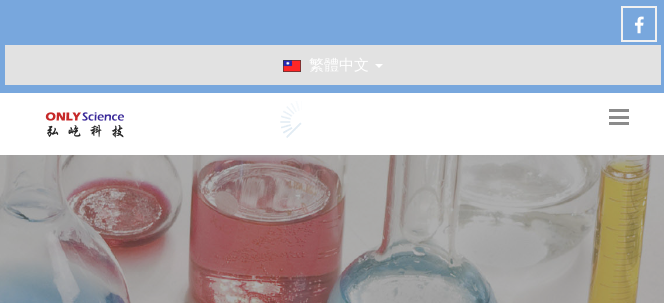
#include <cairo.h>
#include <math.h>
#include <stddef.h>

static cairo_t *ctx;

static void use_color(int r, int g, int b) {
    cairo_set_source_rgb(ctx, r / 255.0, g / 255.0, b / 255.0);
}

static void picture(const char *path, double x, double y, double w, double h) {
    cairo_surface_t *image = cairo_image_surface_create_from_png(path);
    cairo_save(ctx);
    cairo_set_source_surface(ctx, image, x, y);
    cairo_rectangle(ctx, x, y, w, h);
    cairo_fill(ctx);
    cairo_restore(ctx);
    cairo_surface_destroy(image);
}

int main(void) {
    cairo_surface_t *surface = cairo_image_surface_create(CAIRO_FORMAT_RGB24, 664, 303);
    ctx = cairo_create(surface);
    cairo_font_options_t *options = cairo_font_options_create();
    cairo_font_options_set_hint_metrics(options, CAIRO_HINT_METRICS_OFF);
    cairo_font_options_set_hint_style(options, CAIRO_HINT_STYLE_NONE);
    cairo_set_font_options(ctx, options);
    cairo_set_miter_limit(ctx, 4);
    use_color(255, 255, 255);
    cairo_paint(ctx);
    use_color(120, 167, 221);
    cairo_rectangle(ctx, 0, 0, 664, 93);
    cairo_fill(ctx);
    cairo_rectangle(ctx, 622, 7, 34, 34);
    use_color(241, 241, 241);
    cairo_stroke(ctx);
    picture("img1.png", 634, 16, 10, 18);
    use_color(226, 226, 226);
    cairo_rectangle(ctx, 5, 45, 656, 40);
    cairo_fill(ctx);
    picture("img2.png", 283, 60, 18, 12);
    cairo_select_font_face(ctx, "WenQuanYi Zen Hei Medium", CAIRO_FONT_SLANT_NORMAL, CAIRO_FONT_WEIGHT_NORMAL);
    cairo_set_font_size(ctx, 15);
    use_color(255, 255, 255);
    cairo_move_to(ctx, 309, 70);
    cairo_show_text(ctx, "繁體中文");
    cairo_new_path(ctx);
    cairo_move_to(ctx, 375, 64);
    cairo_line_to(ctx, 383, 64);
    cairo_line_to(ctx, 379, 68);
    cairo_close_path(ctx);
    cairo_fill(ctx);
    picture("img3.png", 45, 112, 79, 26);
    use_color(139, 139, 139);
    cairo_rectangle(ctx, 609, 109, 20, 3);
    cairo_fill(ctx);
    cairo_rectangle(ctx, 609, 116, 20, 3);
    cairo_fill(ctx);
    cairo_rectangle(ctx, 609, 122, 20, 3);
    cairo_fill(ctx);
    picture("img4.png", 280, 101, 22, 37);
    picture("img5.png", 0, 155, 664, 148);
    cairo_surface_write_to_png(surface, "result.png");
    cairo_font_options_destroy(options);
    cairo_destroy(ctx);
    cairo_surface_destroy(surface);
    return 0;
}
